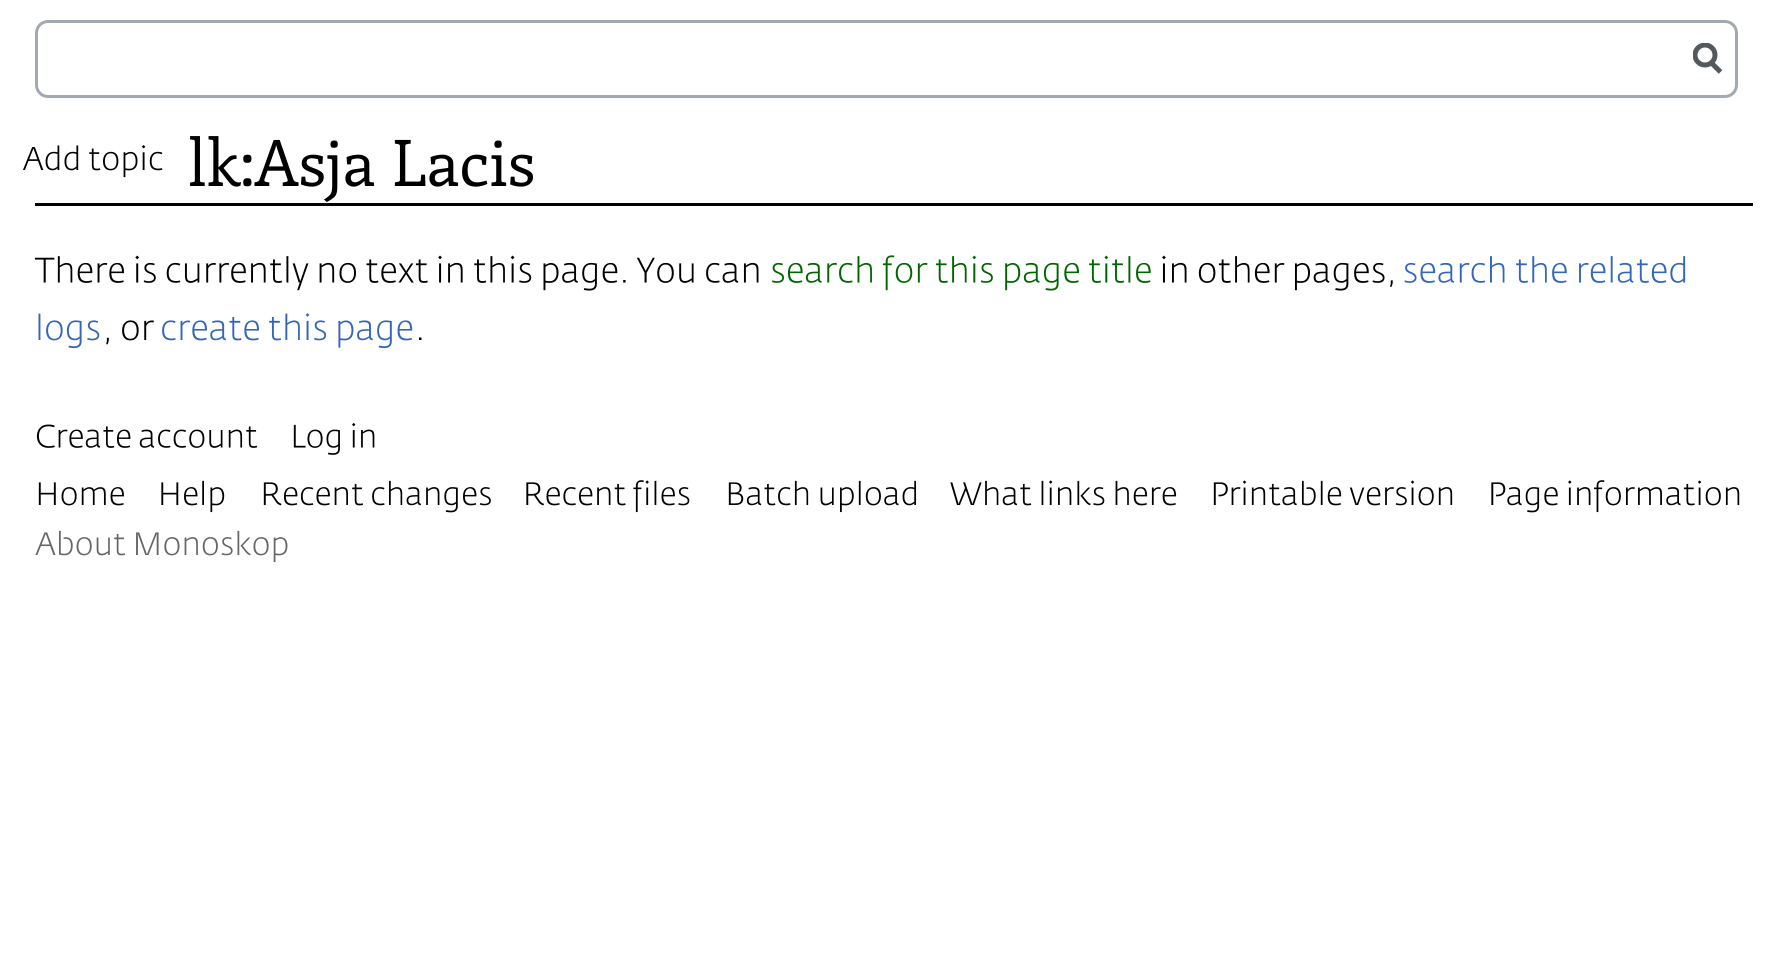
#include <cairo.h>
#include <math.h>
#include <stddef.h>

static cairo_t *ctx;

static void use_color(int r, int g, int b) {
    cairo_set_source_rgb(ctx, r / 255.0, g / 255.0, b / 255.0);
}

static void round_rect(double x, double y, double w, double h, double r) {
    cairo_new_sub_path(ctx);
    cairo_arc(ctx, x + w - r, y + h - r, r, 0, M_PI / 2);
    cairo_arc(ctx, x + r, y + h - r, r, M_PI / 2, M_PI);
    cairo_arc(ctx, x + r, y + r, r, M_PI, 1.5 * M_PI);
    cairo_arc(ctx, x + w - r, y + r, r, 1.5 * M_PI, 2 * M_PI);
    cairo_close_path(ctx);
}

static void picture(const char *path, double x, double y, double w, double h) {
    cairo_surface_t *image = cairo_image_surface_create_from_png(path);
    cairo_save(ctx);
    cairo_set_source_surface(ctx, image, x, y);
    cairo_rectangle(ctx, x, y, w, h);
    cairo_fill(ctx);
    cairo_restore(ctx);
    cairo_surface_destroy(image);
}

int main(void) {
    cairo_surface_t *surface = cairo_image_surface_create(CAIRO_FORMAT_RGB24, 1786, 975);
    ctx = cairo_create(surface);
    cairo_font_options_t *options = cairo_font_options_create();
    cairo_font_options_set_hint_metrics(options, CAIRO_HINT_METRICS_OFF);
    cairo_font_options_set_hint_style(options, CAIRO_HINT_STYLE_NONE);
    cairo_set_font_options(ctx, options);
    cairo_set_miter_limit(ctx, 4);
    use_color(255, 255, 255);
    cairo_paint(ctx);
    round_rect(36.5, 21.5, 1700, 75, 11.5);
    use_color(162, 169, 177);
    cairo_set_line_width(ctx, 3);
    cairo_stroke(ctx);
    cairo_new_path(ctx);
    cairo_move_to(ctx, 1720.5, 72);
    cairo_line_to(ctx, 1710.5, 62);
    use_color(84, 89, 93);
    cairo_set_line_width(ctx, 5);
    cairo_stroke(ctx);
    cairo_save(ctx);
    cairo_rectangle(ctx, 1693, 43, 30, 32);
    cairo_clip(ctx);
    cairo_arc(ctx, 1705, 55, 10, 0, 2 * M_PI);
    cairo_stroke(ctx);
    cairo_restore(ctx);
    picture("img1.png", 23, 145, 140, 33);
    picture("img2.png", 36, 424, 222, 24);
    picture("img3.png", 293, 423, 82, 32);
    picture("img4.png", 38, 482, 86, 24);
    picture("img5.png", 161, 480, 64, 33);
    picture("img6.png", 263, 480, 228, 33);
    picture("img7.png", 526, 480, 164, 33);
    picture("img8.png", 728, 480, 189, 33);
    picture("img9.png", 950, 480, 227, 26);
    picture("img10.png", 1213, 480, 240, 26);
    picture("img11.png", 1491, 480, 249, 33);
    use_color(0, 0, 0);
    cairo_rectangle(ctx, 35, 203, 1718, 3);
    cairo_fill(ctx);
    cairo_select_font_face(ctx, "Enriqueta", CAIRO_FONT_SLANT_NORMAL, CAIRO_FONT_WEIGHT_NORMAL);
    cairo_set_font_size(ctx, 64);
    cairo_move_to(ctx, 188, 186);
    cairo_show_text(ctx, "lk:Asja Lacis");
    picture("img12.png", 35, 255, 724, 36);
    picture("img13.png", 772, 255, 379, 36);
    picture("img14.png", 1162, 255, 231, 36);
    picture("img15.png", 1404, 256, 282, 27);
    picture("img16.png", 38, 313, 62, 36);
    picture("img17.png", 106, 320, 48, 25);
    picture("img18.png", 162, 313, 251, 36);
    cairo_new_path(ctx);
    cairo_move_to(ctx, 419, 340);
    cairo_line_to(ctx, 419, 337.5);
    cairo_line_to(ctx, 421.5, 337.5);
    cairo_line_to(ctx, 421.5, 340);
    cairo_close_path(ctx);
    cairo_fill(ctx);
    picture("img19.png", 35, 530, 253, 33);
    cairo_surface_write_to_png(surface, "result.png");
    cairo_font_options_destroy(options);
    cairo_destroy(ctx);
    cairo_surface_destroy(surface);
    return 0;
}
